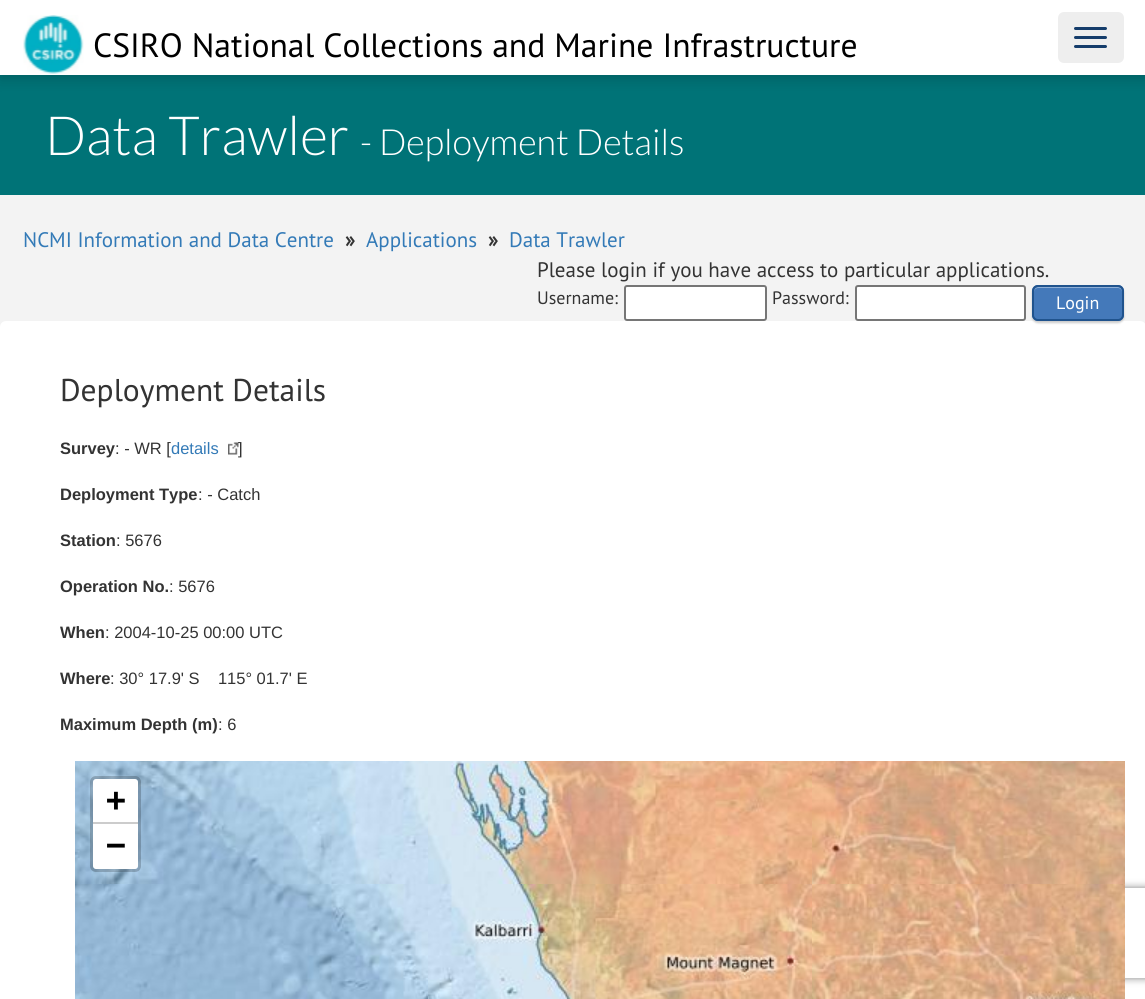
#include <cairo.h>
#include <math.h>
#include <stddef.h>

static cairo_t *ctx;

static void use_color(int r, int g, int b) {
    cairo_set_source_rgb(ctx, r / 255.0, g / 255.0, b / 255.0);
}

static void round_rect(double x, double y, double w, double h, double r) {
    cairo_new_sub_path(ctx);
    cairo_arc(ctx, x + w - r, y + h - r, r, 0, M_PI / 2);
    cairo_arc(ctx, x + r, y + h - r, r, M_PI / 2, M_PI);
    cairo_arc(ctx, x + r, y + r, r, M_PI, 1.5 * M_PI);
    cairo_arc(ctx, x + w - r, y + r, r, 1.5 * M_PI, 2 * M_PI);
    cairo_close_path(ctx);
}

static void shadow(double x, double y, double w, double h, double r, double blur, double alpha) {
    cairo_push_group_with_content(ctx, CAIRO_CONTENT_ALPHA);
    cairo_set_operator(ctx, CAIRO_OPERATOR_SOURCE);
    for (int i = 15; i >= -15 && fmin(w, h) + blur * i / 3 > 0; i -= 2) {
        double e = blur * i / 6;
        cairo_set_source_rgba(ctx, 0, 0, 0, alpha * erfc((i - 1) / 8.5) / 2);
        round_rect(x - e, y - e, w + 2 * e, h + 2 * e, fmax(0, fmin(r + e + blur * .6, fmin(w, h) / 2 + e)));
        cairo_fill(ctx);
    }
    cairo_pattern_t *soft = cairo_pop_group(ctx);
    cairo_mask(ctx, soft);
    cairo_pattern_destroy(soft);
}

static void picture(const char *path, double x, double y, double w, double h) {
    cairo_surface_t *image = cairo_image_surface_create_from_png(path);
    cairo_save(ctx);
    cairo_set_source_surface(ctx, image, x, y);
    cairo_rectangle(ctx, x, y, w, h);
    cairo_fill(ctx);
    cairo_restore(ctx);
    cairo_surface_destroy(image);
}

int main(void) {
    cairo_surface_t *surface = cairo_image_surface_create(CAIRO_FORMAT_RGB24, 1145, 999);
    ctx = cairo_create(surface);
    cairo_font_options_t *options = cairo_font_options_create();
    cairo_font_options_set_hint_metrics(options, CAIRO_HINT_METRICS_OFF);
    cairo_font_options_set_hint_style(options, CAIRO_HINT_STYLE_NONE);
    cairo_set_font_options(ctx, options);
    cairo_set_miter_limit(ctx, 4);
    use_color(243, 243, 243);
    cairo_paint(ctx);
    use_color(0, 115, 119);
    cairo_rectangle(ctx, 0, 75, 1145, 120);
    cairo_fill(ctx);
    use_color(0, 0, 0);
    shadow(0, 3, 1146, 75, 0, 7.5, 0.2);
    use_color(255, 255, 255);
    cairo_rectangle(ctx, 0, 0, 1145, 75);
    cairo_fill(ctx);
    picture("img1.png", 23, 15, 61, 59);
    cairo_select_font_face(ctx, "PT Sans", CAIRO_FONT_SLANT_NORMAL, CAIRO_FONT_WEIGHT_NORMAL);
    cairo_set_font_size(ctx, 33.6);
    use_color(0, 0, 0);
    cairo_move_to(ctx, 93, 57);
    cairo_show_text(ctx, "CSIRO National Collections and Marine Infrastructure");
    use_color(238, 238, 238);
    round_rect(1058, 12, 66, 51, 6);
    cairo_fill(ctx);
    use_color(21, 61, 107);
    round_rect(1074, 27, 33, 3, 1.5);
    cairo_fill(ctx);
    round_rect(1074, 36, 33, 3, 1.5);
    cairo_fill(ctx);
    round_rect(1074, 45, 33, 3, 1.5);
    cairo_fill(ctx);
    cairo_select_font_face(ctx, "Lato Light", CAIRO_FONT_SLANT_NORMAL, CAIRO_FONT_WEIGHT_NORMAL);
    cairo_set_font_size(ctx, 54);
    use_color(255, 255, 255);
    cairo_move_to(ctx, 45, 155);
    cairo_show_text(ctx, "Data Trawler");
    cairo_set_font_size(ctx, 36);
    cairo_move_to(ctx, 360, 155);
    cairo_show_text(ctx, "- Deployment Details");
    cairo_select_font_face(ctx, "PT Sans", CAIRO_FONT_SLANT_NORMAL, CAIRO_FONT_WEIGHT_NORMAL);
    cairo_set_font_size(ctx, 21);
    use_color(51, 122, 183);
    cairo_move_to(ctx, 23, 247);
    cairo_show_text(ctx, "NCMI Information and Data Centre");
    cairo_select_font_face(ctx, "PT Sans", CAIRO_FONT_SLANT_NORMAL, CAIRO_FONT_WEIGHT_BOLD);
    use_color(51, 51, 51);
    cairo_move_to(ctx, 345, 247);
    cairo_show_text(ctx, "»");
    cairo_select_font_face(ctx, "PT Sans", CAIRO_FONT_SLANT_NORMAL, CAIRO_FONT_WEIGHT_NORMAL);
    use_color(51, 122, 183);
    cairo_move_to(ctx, 366, 247);
    cairo_show_text(ctx, "Applications");
    cairo_select_font_face(ctx, "PT Sans", CAIRO_FONT_SLANT_NORMAL, CAIRO_FONT_WEIGHT_BOLD);
    use_color(51, 51, 51);
    cairo_move_to(ctx, 488, 247);
    cairo_show_text(ctx, "»");
    cairo_select_font_face(ctx, "PT Sans", CAIRO_FONT_SLANT_NORMAL, CAIRO_FONT_WEIGHT_NORMAL);
    use_color(51, 122, 183);
    cairo_move_to(ctx, 509, 247);
    cairo_show_text(ctx, "Data Trawler");
    use_color(51, 51, 51);
    cairo_move_to(ctx, 537, 277);
    cairo_show_text(ctx, "Please login if you have access to particular applications.");
    cairo_set_font_size(ctx, 18);
    cairo_move_to(ctx, 537, 304);
    cairo_show_text(ctx, "Username:");
    use_color(255, 255, 255);
    round_rect(625, 286, 141, 34, 2);
    cairo_fill_preserve(ctx);
    use_color(118, 118, 118);
    cairo_stroke(ctx);
    use_color(51, 51, 51);
    cairo_move_to(ctx, 772, 304);
    cairo_show_text(ctx, "Password:");
    use_color(255, 255, 255);
    round_rect(856, 286, 169, 34, 2);
    cairo_fill_preserve(ctx);
    use_color(118, 118, 118);
    cairo_stroke(ctx);
    use_color(255, 255, 255);
    round_rect(0, 321, 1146, 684, 6);
    cairo_fill(ctx);
    use_color(0, 0, 0);
    shadow(1032, 287, 92, 36, 6, 1, 0.2);
    use_color(68, 121, 186);
    round_rect(1032, 285, 92, 36, 6);
    cairo_fill(ctx);
    use_color(143, 175, 214);
    cairo_new_path(ctx);
    cairo_move_to(ctx, 1038, 288);
    cairo_line_to(ctx, 1118, 288);
    cairo_curve_to(ctx, 1120, 288, 1122, 290, 1122, 292);
    cairo_curve_to(ctx, 1122, 289, 1120, 287, 1117, 287);
    cairo_line_to(ctx, 1039, 287);
    cairo_curve_to(ctx, 1036, 287, 1034, 289, 1034, 292);
    cairo_curve_to(ctx, 1034, 290, 1036, 288, 1038, 288);
    cairo_close_path(ctx);
    cairo_fill(ctx);
    round_rect(1033, 286, 90, 34, 5);
    use_color(32, 83, 141);
    cairo_stroke(ctx);
    use_color(255, 255, 255);
    cairo_move_to(ctx, 1056, 309);
    cairo_show_text(ctx, "Login");
    cairo_save(ctx);
    cairo_set_fill_rule(ctx, CAIRO_FILL_RULE_EVEN_ODD);
    cairo_new_path(ctx);
    cairo_move_to(ctx, 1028, 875);
    cairo_line_to(ctx, 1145, 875);
    cairo_line_to(ctx, 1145, 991);
    cairo_line_to(ctx, 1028, 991);
    cairo_close_path(ctx);
    cairo_move_to(ctx, 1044, 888);
    cairo_line_to(ctx, 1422, 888);
    cairo_curve_to(ctx, 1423.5, 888, 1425, 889.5, 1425, 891);
    cairo_line_to(ctx, 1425, 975);
    cairo_curve_to(ctx, 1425, 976.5, 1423.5, 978, 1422, 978);
    cairo_line_to(ctx, 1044, 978);
    cairo_curve_to(ctx, 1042.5, 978, 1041, 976.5, 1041, 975);
    cairo_line_to(ctx, 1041, 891);
    cairo_curve_to(ctx, 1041, 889.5, 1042.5, 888, 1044, 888);
    cairo_close_path(ctx);
    cairo_clip(ctx);
    use_color(128, 128, 128);
    shadow(1041, 888, 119, 90, 3, 4, 1);
    cairo_restore(ctx);
    cairo_set_font_size(ctx, 31.5);
    use_color(51, 51, 51);
    cairo_move_to(ctx, 60, 401);
    cairo_show_text(ctx, "Deployment Details");
    cairo_select_font_face(ctx, "Liberation Sans", CAIRO_FONT_SLANT_NORMAL, CAIRO_FONT_WEIGHT_BOLD);
    cairo_set_font_size(ctx, 16.5);
    cairo_move_to(ctx, 60, 454);
    cairo_show_text(ctx, "Survey");
    cairo_select_font_face(ctx, "Liberation Sans", CAIRO_FONT_SLANT_NORMAL, CAIRO_FONT_WEIGHT_NORMAL);
    cairo_move_to(ctx, 115, 454);
    cairo_show_text(ctx, ": - WR [");
    use_color(51, 122, 183);
    cairo_move_to(ctx, 171, 454);
    cairo_show_text(ctx, "details");
    picture("img2.png", 228, 442, 11, 13);
    use_color(51, 51, 51);
    cairo_move_to(ctx, 238, 454);
    cairo_show_text(ctx, "]");
    cairo_select_font_face(ctx, "Liberation Sans", CAIRO_FONT_SLANT_NORMAL, CAIRO_FONT_WEIGHT_BOLD);
    cairo_move_to(ctx, 60, 500);
    cairo_show_text(ctx, "Deployment Type");
    cairo_select_font_face(ctx, "Liberation Sans", CAIRO_FONT_SLANT_NORMAL, CAIRO_FONT_WEIGHT_NORMAL);
    cairo_move_to(ctx, 198, 500);
    cairo_show_text(ctx, ": - Catch");
    cairo_select_font_face(ctx, "Liberation Sans", CAIRO_FONT_SLANT_NORMAL, CAIRO_FONT_WEIGHT_BOLD);
    cairo_move_to(ctx, 60, 546);
    cairo_show_text(ctx, "Station");
    cairo_select_font_face(ctx, "Liberation Sans", CAIRO_FONT_SLANT_NORMAL, CAIRO_FONT_WEIGHT_NORMAL);
    cairo_move_to(ctx, 116, 546);
    cairo_show_text(ctx, ": 5676");
    cairo_select_font_face(ctx, "Liberation Sans", CAIRO_FONT_SLANT_NORMAL, CAIRO_FONT_WEIGHT_BOLD);
    cairo_move_to(ctx, 60, 592);
    cairo_show_text(ctx, "Operation No.");
    cairo_select_font_face(ctx, "Liberation Sans", CAIRO_FONT_SLANT_NORMAL, CAIRO_FONT_WEIGHT_NORMAL);
    cairo_move_to(ctx, 169, 592);
    cairo_show_text(ctx, ": 5676");
    cairo_select_font_face(ctx, "Liberation Sans", CAIRO_FONT_SLANT_NORMAL, CAIRO_FONT_WEIGHT_BOLD);
    cairo_move_to(ctx, 60, 638);
    cairo_show_text(ctx, "When");
    cairo_select_font_face(ctx, "Liberation Sans", CAIRO_FONT_SLANT_NORMAL, CAIRO_FONT_WEIGHT_NORMAL);
    cairo_move_to(ctx, 105, 638);
    cairo_show_text(ctx, ": 2004-10-25 00:00 UTC");
    cairo_select_font_face(ctx, "Liberation Sans", CAIRO_FONT_SLANT_NORMAL, CAIRO_FONT_WEIGHT_BOLD);
    cairo_move_to(ctx, 60, 684);
    cairo_show_text(ctx, "Where");
    cairo_select_font_face(ctx, "Liberation Sans", CAIRO_FONT_SLANT_NORMAL, CAIRO_FONT_WEIGHT_NORMAL);
    cairo_move_to(ctx, 110, 684);
    cairo_show_text(ctx, ": 30° 17.9' S    115° 01.7' E");
    cairo_select_font_face(ctx, "Liberation Sans", CAIRO_FONT_SLANT_NORMAL, CAIRO_FONT_WEIGHT_BOLD);
    cairo_move_to(ctx, 60, 730);
    cairo_show_text(ctx, "Maximum Depth (m)");
    cairo_select_font_face(ctx, "Liberation Sans", CAIRO_FONT_SLANT_NORMAL, CAIRO_FONT_WEIGHT_NORMAL);
    cairo_move_to(ctx, 218, 730);
    cairo_show_text(ctx, ": 6");
    picture("img3.png", 75, 761, 353, 123);
    picture("img4.png", 428, 761, 384, 123);
    picture("img5.png", 812, 761, 313, 123);
    picture("img6.png", 75, 884, 353, 115);
    picture("img7.png", 428, 884, 384, 115);
    picture("img8.png", 812, 884, 313, 115);
    round_rect(91.5, 777.5, 48, 93, 4.5);
    cairo_set_source_rgba(ctx, 0, 0, 0, 0.2);
    cairo_set_line_width(ctx, 3);
    cairo_stroke(ctx);
    use_color(255, 255, 255);
    cairo_new_path(ctx);
    cairo_move_to(ctx, 96, 779);
    cairo_line_to(ctx, 135, 779);
    cairo_curve_to(ctx, 136.5, 779, 138, 780.5, 138, 782);
    cairo_line_to(ctx, 138, 824);
    cairo_line_to(ctx, 93, 824);
    cairo_line_to(ctx, 93, 782);
    cairo_curve_to(ctx, 93, 780.5, 94.5, 779, 96, 779);
    cairo_close_path(ctx);
    cairo_fill(ctx);
    use_color(204, 204, 204);
    cairo_rectangle(ctx, 93, 822, 45, 2);
    cairo_fill(ctx);
    cairo_select_font_face(ctx, "DejaVu Sans Mono", CAIRO_FONT_SLANT_NORMAL, CAIRO_FONT_WEIGHT_BOLD);
    cairo_set_font_size(ctx, 33);
    use_color(0, 0, 0);
    cairo_move_to(ctx, 106, 811);
    cairo_show_text(ctx, "+");
    use_color(255, 255, 255);
    cairo_new_path(ctx);
    cairo_move_to(ctx, 93, 824);
    cairo_line_to(ctx, 138, 824);
    cairo_line_to(ctx, 138, 866);
    cairo_curve_to(ctx, 138, 867.5, 136.5, 869, 135, 869);
    cairo_line_to(ctx, 96, 869);
    cairo_curve_to(ctx, 94.5, 869, 93, 867.5, 93, 866);
    cairo_close_path(ctx);
    cairo_fill(ctx);
    use_color(0, 0, 0);
    cairo_move_to(ctx, 106, 856);
    cairo_show_text(ctx, "−");
    cairo_surface_write_to_png(surface, "result.png");
    cairo_font_options_destroy(options);
    cairo_destroy(ctx);
    cairo_surface_destroy(surface);
    return 0;
}
